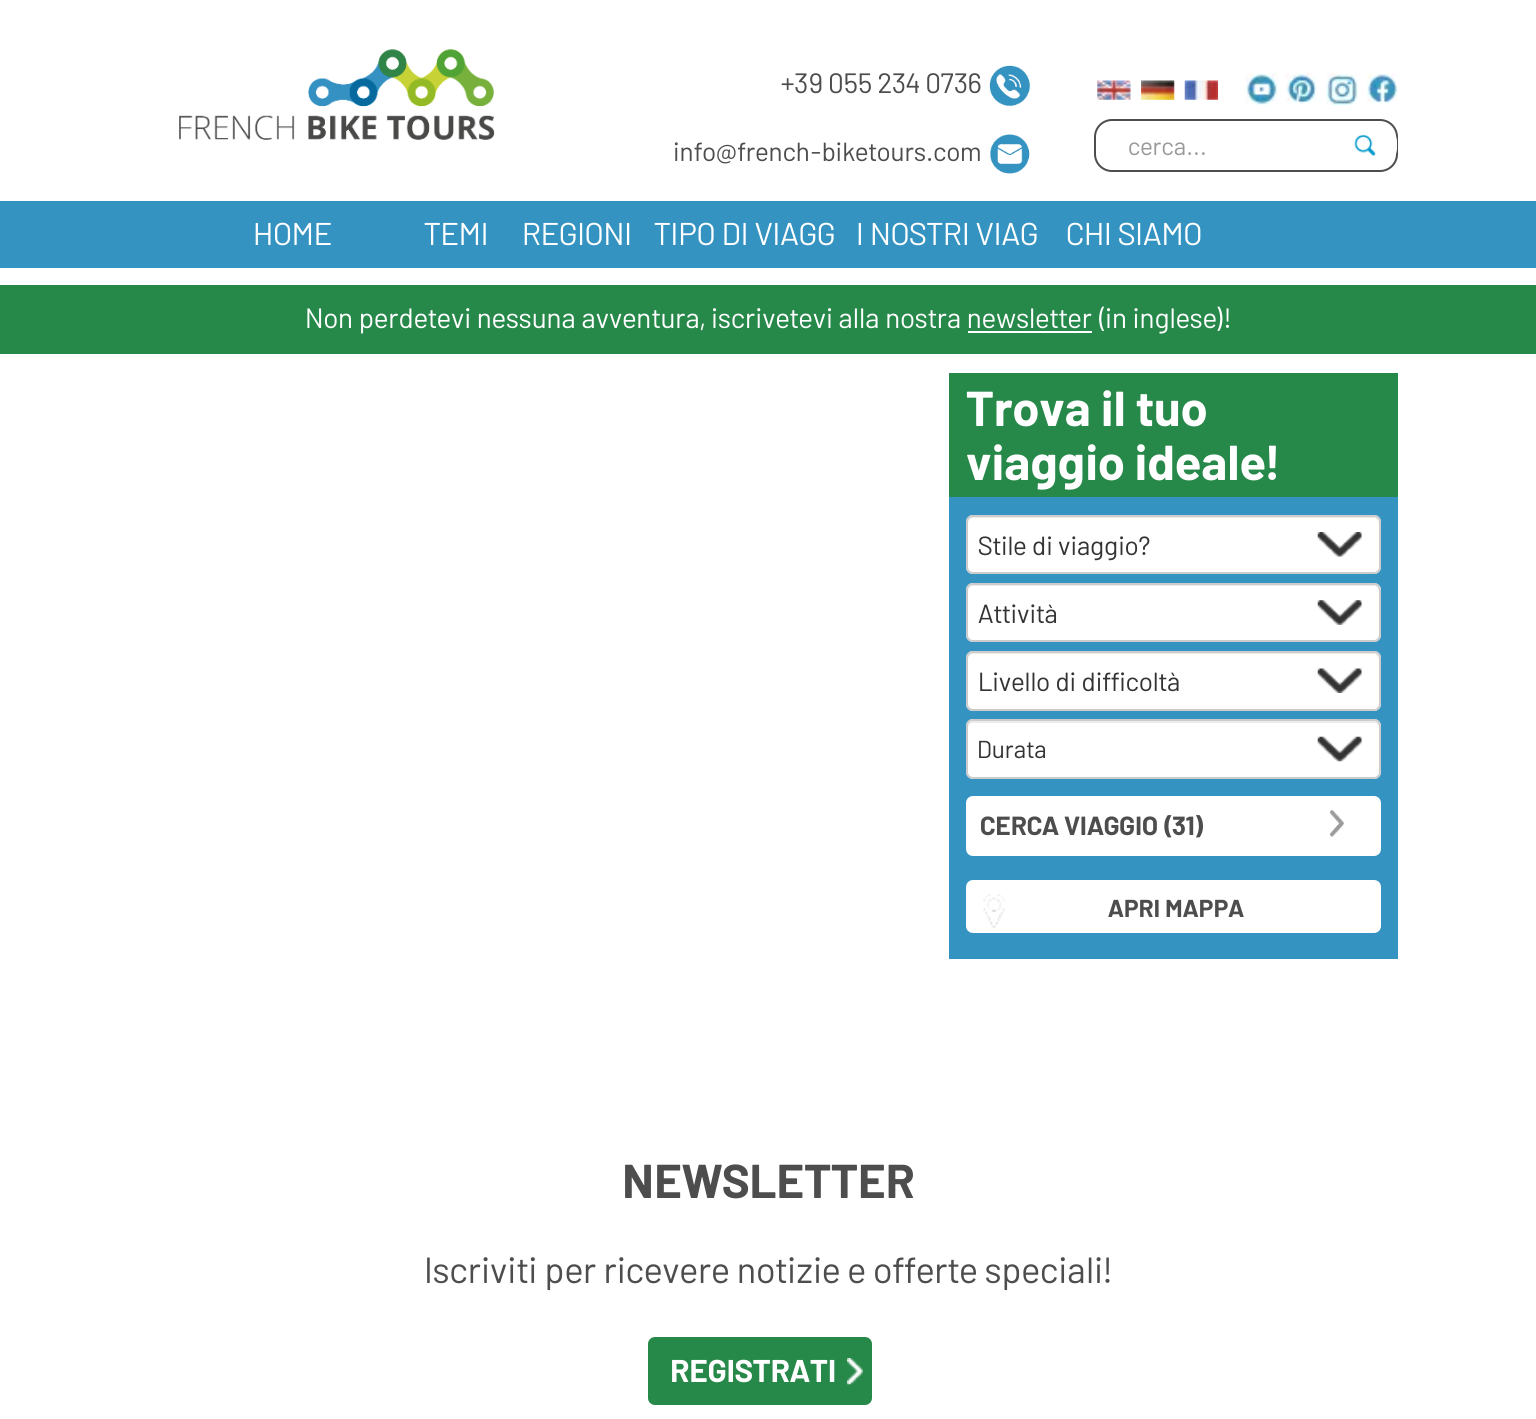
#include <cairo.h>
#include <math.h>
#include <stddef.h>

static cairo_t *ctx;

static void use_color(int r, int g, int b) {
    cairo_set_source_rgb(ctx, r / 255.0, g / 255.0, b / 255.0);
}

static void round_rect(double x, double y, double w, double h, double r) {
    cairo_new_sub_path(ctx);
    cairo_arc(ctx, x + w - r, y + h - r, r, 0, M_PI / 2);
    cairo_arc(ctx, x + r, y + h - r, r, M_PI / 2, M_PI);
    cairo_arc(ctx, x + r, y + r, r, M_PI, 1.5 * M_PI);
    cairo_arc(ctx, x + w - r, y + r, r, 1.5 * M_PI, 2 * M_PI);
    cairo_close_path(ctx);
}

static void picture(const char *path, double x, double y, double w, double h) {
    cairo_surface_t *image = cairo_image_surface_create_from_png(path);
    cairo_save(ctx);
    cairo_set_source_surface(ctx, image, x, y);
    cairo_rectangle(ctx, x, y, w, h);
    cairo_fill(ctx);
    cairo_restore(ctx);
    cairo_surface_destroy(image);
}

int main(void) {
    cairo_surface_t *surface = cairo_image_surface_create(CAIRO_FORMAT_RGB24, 1536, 1419);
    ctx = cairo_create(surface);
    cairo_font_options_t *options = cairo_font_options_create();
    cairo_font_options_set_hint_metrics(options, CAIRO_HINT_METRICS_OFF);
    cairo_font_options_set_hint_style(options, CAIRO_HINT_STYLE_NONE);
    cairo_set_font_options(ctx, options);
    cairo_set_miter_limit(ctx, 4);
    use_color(255, 255, 255);
    cairo_paint(ctx);
    picture("img1.png", 179, 49, 316, 91);
    cairo_select_font_face(ctx, "Barlow", CAIRO_FONT_SLANT_NORMAL, CAIRO_FONT_WEIGHT_NORMAL);
    cairo_set_font_size(ctx, 28);
    use_color(77, 77, 77);
    cairo_move_to(ctx, 781, 93);
    cairo_show_text(ctx, "+39 055 234 0736");
    picture("img2.png", 989, 65, 42, 42);
    cairo_set_font_size(ctx, 26.25);
    cairo_move_to(ctx, 673, 161);
    cairo_show_text(ctx, "info@french-biketours.com");
    picture("img3.png", 990, 134, 40, 40);
    picture("img4.png", 1097, 80, 34, 20);
    picture("img5.png", 1141, 80, 34, 20);
    picture("img6.png", 1184, 80, 34, 20);
    picture("img7.png", 1246, 73, 32, 32);
    picture("img8.png", 1286, 73, 31, 31);
    picture("img9.png", 1326, 73, 32, 32);
    picture("img10.png", 1366, 73, 32, 31);
    round_rect(1095, 120, 302, 51, 17);
    cairo_stroke(ctx);
    cairo_set_font_size(ctx, 24.5);
    use_color(153, 153, 153);
    cairo_move_to(ctx, 1128, 155);
    cairo_show_text(ctx, "cerca...");
    use_color(255, 255, 255);
    cairo_new_path(ctx);
    cairo_move_to(ctx, 1334, 124);
    cairo_line_to(ctx, 1379, 124);
    cairo_curve_to(ctx, 1389, 124, 1397, 132, 1397, 142);
    cairo_line_to(ctx, 1397, 148);
    cairo_curve_to(ctx, 1397, 158, 1389, 166, 1379, 166);
    cairo_line_to(ctx, 1334, 166);
    cairo_close_path(ctx);
    cairo_fill(ctx);
    picture("img11.png", 1354, 134, 22, 22);
    use_color(53, 147, 193);
    cairo_rectangle(ctx, 0, 201, 1536, 67);
    cairo_fill(ctx);
    cairo_set_font_size(ctx, 31.5);
    use_color(255, 255, 255);
    cairo_move_to(ctx, 253, 245);
    cairo_show_text(ctx, "HOME");
    cairo_move_to(ctx, 424, 245);
    cairo_show_text(ctx, "TEMI");
    cairo_move_to(ctx, 522, 245);
    cairo_show_text(ctx, "REGIONI");
    cairo_move_to(ctx, 654, 245);
    cairo_show_text(ctx, "TIPO DI VIAGG");
    cairo_move_to(ctx, 856, 245);
    cairo_show_text(ctx, "I NOSTRI VIAG");
    cairo_move_to(ctx, 1066, 245);
    cairo_show_text(ctx, "CHI SIAMO");
    use_color(38, 136, 73);
    cairo_rectangle(ctx, 0, 285, 1536, 69);
    cairo_fill(ctx);
    cairo_set_font_size(ctx, 28);
    use_color(255, 255, 255);
    cairo_move_to(ctx, 305, 328);
    cairo_show_text(ctx, "Non perdetevi nessuna avventura, iscrivetevi alla nostra newsletter (in inglese)!");
    cairo_rectangle(ctx, 968, 331, 124, 2);
    cairo_fill(ctx);
    use_color(53, 147, 193);
    cairo_rectangle(ctx, 949, 497, 449, 462);
    cairo_fill(ctx);
    use_color(38, 136, 73);
    cairo_rectangle(ctx, 949, 373, 449, 124);
    cairo_fill(ctx);
    cairo_select_font_face(ctx, "Barlow", CAIRO_FONT_SLANT_NORMAL, CAIRO_FONT_WEIGHT_BOLD);
    cairo_set_font_size(ctx, 49);
    use_color(255, 255, 255);
    cairo_move_to(ctx, 966, 426);
    cairo_show_text(ctx, "Trova il tuo");
    cairo_move_to(ctx, 966, 480);
    cairo_show_text(ctx, "viaggio ideale!");
    round_rect(966, 515, 415, 59, 7);
    cairo_fill(ctx);
    use_color(236, 236, 236);
    cairo_new_path(ctx);
    cairo_move_to(ctx, 973, 518);
    cairo_line_to(ctx, 1374, 518);
    cairo_curve_to(ctx, 1377, 518, 1379, 520, 1379, 523);
    cairo_line_to(ctx, 1379, 521);
    cairo_curve_to(ctx, 1379, 518, 1377, 516, 1374, 516);
    cairo_line_to(ctx, 973, 516);
    cairo_curve_to(ctx, 970, 516, 968, 518, 968, 521);
    cairo_line_to(ctx, 968, 523);
    cairo_curve_to(ctx, 968, 520, 970, 518, 973, 518);
    cairo_close_path(ctx);
    cairo_fill(ctx);
    round_rect(967, 516, 413, 57, 6);
    use_color(204, 204, 204);
    cairo_stroke(ctx);
    cairo_select_font_face(ctx, "Barlow", CAIRO_FONT_SLANT_NORMAL, CAIRO_FONT_WEIGHT_NORMAL);
    cairo_set_font_size(ctx, 26.25);
    use_color(51, 51, 51);
    cairo_move_to(ctx, 978, 555);
    cairo_show_text(ctx, "Stile di viaggio?");
    picture("img12.png", 1317, 532, 45, 25);
    use_color(255, 255, 255);
    round_rect(966, 583, 415, 59, 7);
    cairo_fill(ctx);
    use_color(236, 236, 236);
    cairo_new_path(ctx);
    cairo_move_to(ctx, 973, 586);
    cairo_line_to(ctx, 1374, 586);
    cairo_curve_to(ctx, 1377, 586, 1379, 589, 1379, 592);
    cairo_line_to(ctx, 1379, 590);
    cairo_curve_to(ctx, 1379, 587, 1377, 585, 1374, 585);
    cairo_line_to(ctx, 973, 585);
    cairo_curve_to(ctx, 970, 585, 968, 587, 968, 590);
    cairo_line_to(ctx, 968, 592);
    cairo_curve_to(ctx, 968, 589, 970, 586, 973, 586);
    cairo_close_path(ctx);
    cairo_fill(ctx);
    round_rect(967, 584, 413, 57, 6);
    use_color(204, 204, 204);
    cairo_stroke(ctx);
    use_color(51, 51, 51);
    cairo_move_to(ctx, 978, 623);
    cairo_show_text(ctx, "Attività");
    picture("img13.png", 1317, 600, 45, 25);
    use_color(255, 255, 255);
    round_rect(966, 651, 415, 60, 7);
    cairo_fill(ctx);
    use_color(236, 236, 236);
    cairo_new_path(ctx);
    cairo_move_to(ctx, 973, 654);
    cairo_line_to(ctx, 1374, 654);
    cairo_curve_to(ctx, 1377, 654, 1379, 657, 1379, 660);
    cairo_line_to(ctx, 1379, 658);
    cairo_curve_to(ctx, 1379, 655, 1377, 653, 1374, 653);
    cairo_line_to(ctx, 973, 653);
    cairo_curve_to(ctx, 970, 653, 968, 655, 968, 658);
    cairo_line_to(ctx, 968, 660);
    cairo_curve_to(ctx, 968, 657, 970, 654, 973, 654);
    cairo_close_path(ctx);
    cairo_fill(ctx);
    round_rect(967, 652, 413, 58, 6);
    use_color(204, 204, 204);
    cairo_stroke(ctx);
    use_color(51, 51, 51);
    cairo_move_to(ctx, 978, 691);
    cairo_show_text(ctx, "Livello di difficoltà");
    picture("img14.png", 1317, 668, 45, 25);
    use_color(255, 255, 255);
    round_rect(966, 719, 415, 60, 7);
    cairo_fill(ctx);
    use_color(236, 236, 236);
    cairo_new_path(ctx);
    cairo_move_to(ctx, 973, 723);
    cairo_line_to(ctx, 1374, 723);
    cairo_curve_to(ctx, 1377, 723, 1379, 725, 1379, 728);
    cairo_line_to(ctx, 1379, 726);
    cairo_curve_to(ctx, 1379, 723, 1377, 721, 1374, 721);
    cairo_line_to(ctx, 973, 721);
    cairo_curve_to(ctx, 970, 721, 968, 723, 968, 726);
    cairo_line_to(ctx, 968, 728);
    cairo_curve_to(ctx, 968, 725, 970, 723, 973, 723);
    cairo_close_path(ctx);
    cairo_fill(ctx);
    round_rect(967, 720, 413, 58, 6);
    use_color(204, 204, 204);
    cairo_stroke(ctx);
    cairo_set_font_size(ctx, 24.5);
    use_color(51, 51, 51);
    cairo_move_to(ctx, 977, 758);
    cairo_show_text(ctx, "Durata");
    picture("img15.png", 1317, 736, 45, 26);
    use_color(255, 255, 255);
    round_rect(966, 796, 415, 60, 7);
    cairo_fill(ctx);
    cairo_select_font_face(ctx, "Barlow", CAIRO_FONT_SLANT_NORMAL, CAIRO_FONT_WEIGHT_BOLD);
    cairo_set_font_size(ctx, 26.25);
    use_color(77, 77, 77);
    cairo_move_to(ctx, 980, 835);
    cairo_show_text(ctx, "CERCA VIAGGIO (31)");
    picture("img16.png", 1330, 810, 14, 27);
    use_color(255, 255, 255);
    round_rect(966, 880, 415, 53, 7);
    cairo_fill(ctx);
    picture("img17.png", 983, 894, 22, 34);
    cairo_set_font_size(ctx, 24.5);
    use_color(77, 77, 77);
    cairo_move_to(ctx, 1108, 917);
    cairo_show_text(ctx, "APRI MAPPA");
    cairo_set_font_size(ctx, 47.5);
    cairo_move_to(ctx, 622, 1198);
    cairo_show_text(ctx, "NEWSLETTER");
    cairo_select_font_face(ctx, "Barlow", CAIRO_FONT_SLANT_NORMAL, CAIRO_FONT_WEIGHT_NORMAL);
    cairo_set_font_size(ctx, 36.4);
    cairo_move_to(ctx, 424, 1283);
    cairo_show_text(ctx, "Iscriviti per ricevere notizie e offerte speciali!");
    use_color(38, 136, 73);
    round_rect(648, 1337, 224, 68, 7);
    cairo_fill(ctx);
    picture("img18.png", 847, 1358, 16, 27);
    cairo_select_font_face(ctx, "Barlow", CAIRO_FONT_SLANT_NORMAL, CAIRO_FONT_WEIGHT_BOLD);
    cairo_set_font_size(ctx, 31.5);
    use_color(255, 255, 255);
    cairo_move_to(ctx, 670, 1382);
    cairo_show_text(ctx, "REGISTRATI");
    cairo_surface_write_to_png(surface, "result.png");
    cairo_font_options_destroy(options);
    cairo_destroy(ctx);
    cairo_surface_destroy(surface);
    return 0;
}
